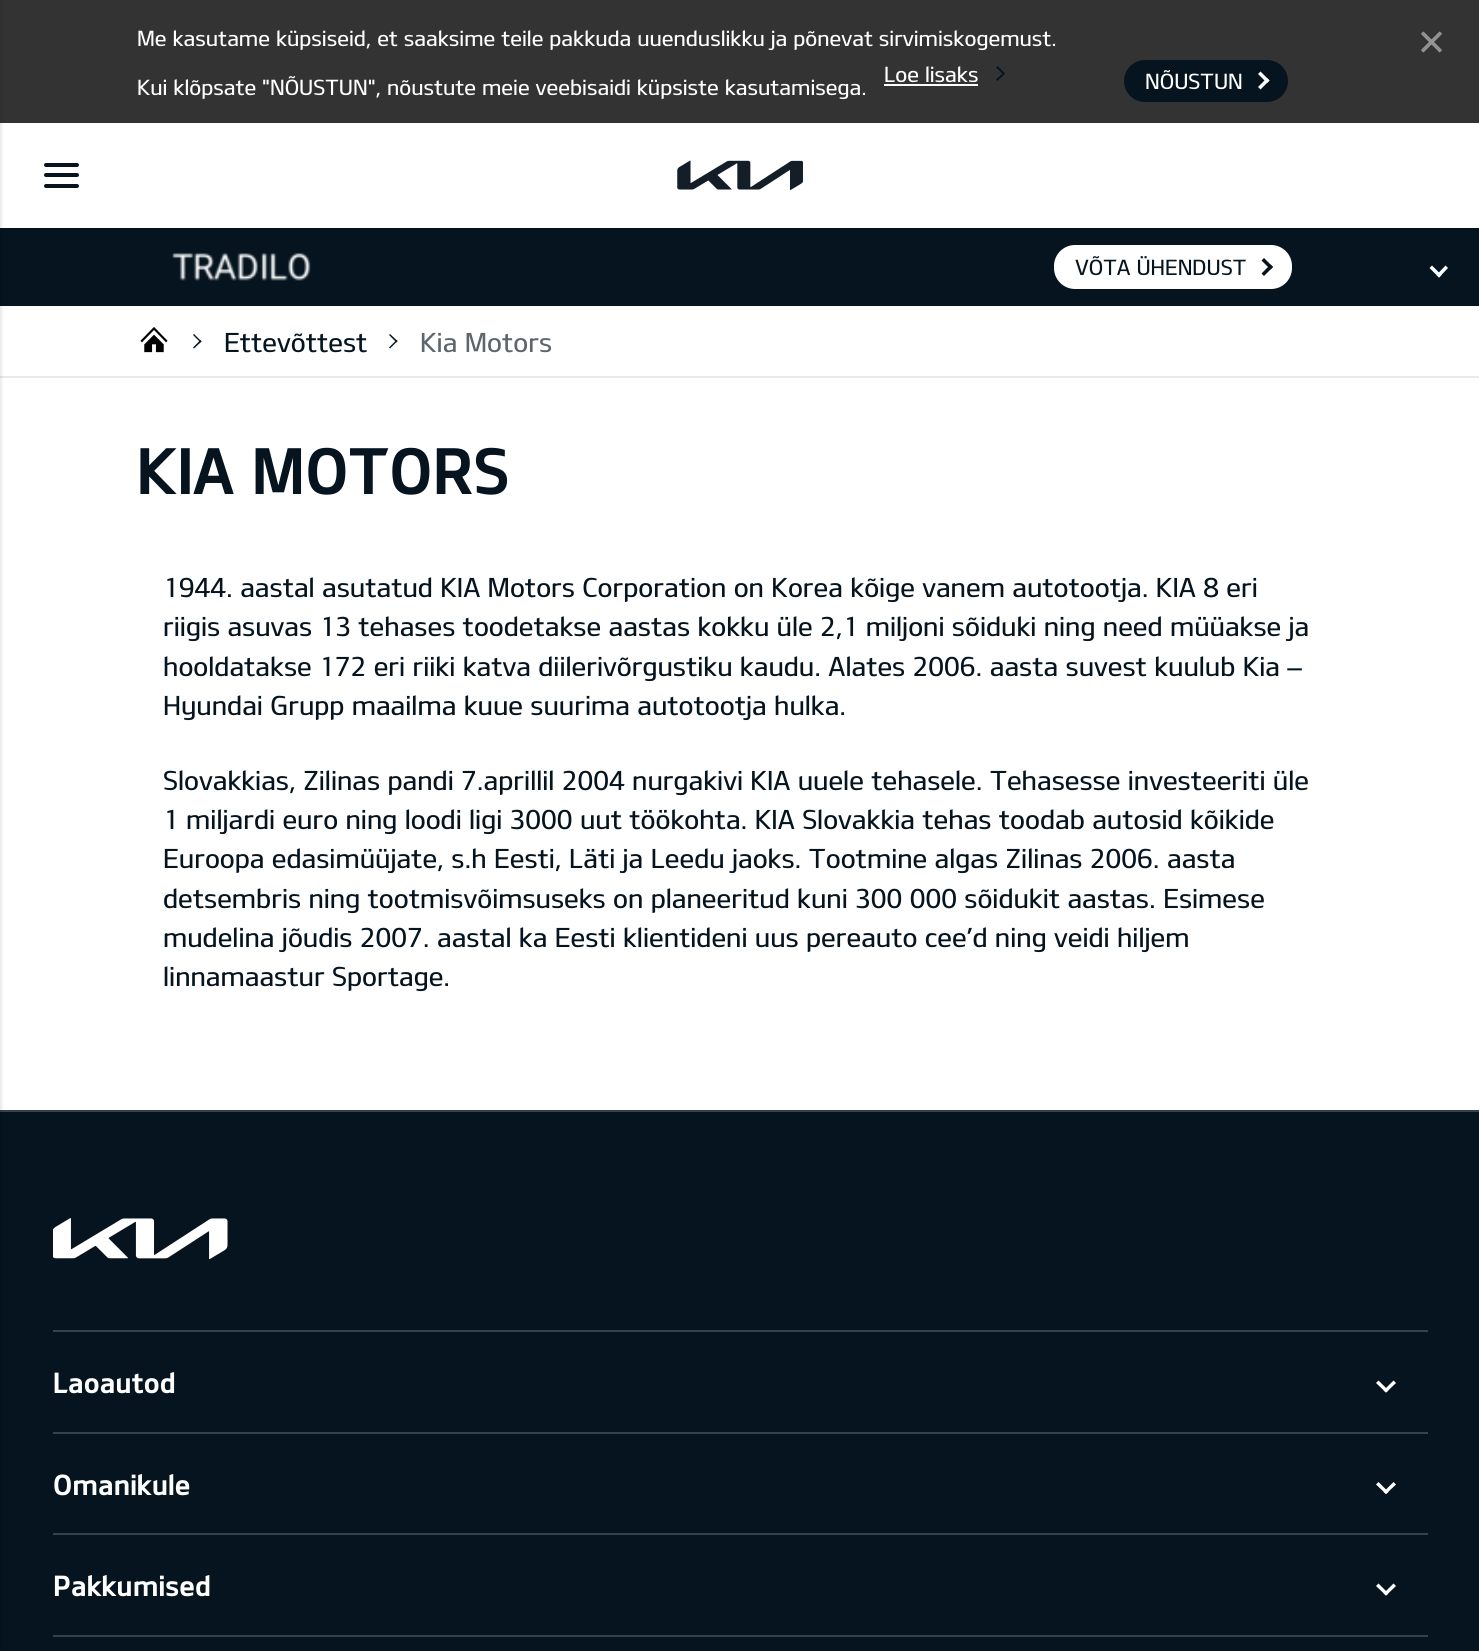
#include <cairo.h>
#include <math.h>
#include <stddef.h>

static cairo_t *ctx;

static void use_color(int r, int g, int b) {
    cairo_set_source_rgb(ctx, r / 255.0, g / 255.0, b / 255.0);
}

static void round_rect(double x, double y, double w, double h, double r) {
    cairo_new_sub_path(ctx);
    cairo_arc(ctx, x + w - r, y + h - r, r, 0, M_PI / 2);
    cairo_arc(ctx, x + r, y + h - r, r, M_PI / 2, M_PI);
    cairo_arc(ctx, x + r, y + r, r, M_PI, 1.5 * M_PI);
    cairo_arc(ctx, x + w - r, y + r, r, 1.5 * M_PI, 2 * M_PI);
    cairo_close_path(ctx);
}

static void shadow(double x, double y, double w, double h, double r, double blur, double alpha) {
    cairo_push_group_with_content(ctx, CAIRO_CONTENT_ALPHA);
    cairo_set_operator(ctx, CAIRO_OPERATOR_SOURCE);
    for (int i = 15; i >= -15 && fmin(w, h) + blur * i / 3 > 0; i -= 2) {
        double e = blur * i / 6;
        cairo_set_source_rgba(ctx, 0, 0, 0, alpha * erfc((i - 1) / 8.5) / 2);
        round_rect(x - e, y - e, w + 2 * e, h + 2 * e, fmax(0, fmin(r + e + blur * .6, fmin(w, h) / 2 + e)));
        cairo_fill(ctx);
    }
    cairo_pattern_t *soft = cairo_pop_group(ctx);
    cairo_mask(ctx, soft);
    cairo_pattern_destroy(soft);
}

static void picture(const char *path, double x, double y, double w, double h) {
    cairo_surface_t *image = cairo_image_surface_create_from_png(path);
    cairo_save(ctx);
    cairo_set_source_surface(ctx, image, x, y);
    cairo_rectangle(ctx, x, y, w, h);
    cairo_fill(ctx);
    cairo_restore(ctx);
    cairo_surface_destroy(image);
}

int main(void) {
    cairo_surface_t *surface = cairo_image_surface_create(CAIRO_FORMAT_RGB24, 1479, 1651);
    ctx = cairo_create(surface);
    cairo_font_options_t *options = cairo_font_options_create();
    cairo_font_options_set_hint_metrics(options, CAIRO_HINT_METRICS_OFF);
    cairo_font_options_set_hint_style(options, CAIRO_HINT_STYLE_NONE);
    cairo_set_font_options(ctx, options);
    cairo_set_miter_limit(ctx, 4);
    use_color(255, 255, 255);
    cairo_paint(ctx);
    use_color(51, 51, 51);
    cairo_rectangle(ctx, 0, 0, 1479, 123);
    cairo_fill(ctx);
    cairo_select_font_face(ctx, "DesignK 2", CAIRO_FONT_SLANT_NORMAL, CAIRO_FONT_WEIGHT_NORMAL);
    cairo_set_font_size(ctx, 21);
    use_color(255, 255, 255);
    cairo_move_to(ctx, 137, 46);
    cairo_show_text(ctx, "Me kasutame küpsiseid, et saaksime teile pakkuda uuenduslikku ja põnevat sirvimiskogemust.");
    cairo_move_to(ctx, 137, 95);
    cairo_show_text(ctx, "Kui klõpsate \"NÕUSTUN\", nõustute meie veebisaidi küpsiste kasutamisega.");
    cairo_move_to(ctx, 884, 82);
    cairo_show_text(ctx, "Loe lisaks");
    cairo_rectangle(ctx, 884, 84, 94, 2);
    cairo_fill(ctx);
    use_color(5, 20, 31);
    cairo_new_path(ctx);
    cairo_move_to(ctx, 997.5, 66);
    cairo_line_to(ctx, 1005, 73.5);
    cairo_line_to(ctx, 1003.5, 74.5);
    cairo_line_to(ctx, 996, 67.5);
    cairo_close_path(ctx);
    cairo_fill(ctx);
    cairo_new_path(ctx);
    cairo_move_to(ctx, 1003.5, 72.5);
    cairo_line_to(ctx, 1005, 73.5);
    cairo_line_to(ctx, 997.5, 81);
    cairo_line_to(ctx, 996, 79.5);
    cairo_close_path(ctx);
    cairo_fill(ctx);
    round_rect(1124, 60, 164, 42, 21);
    cairo_fill(ctx);
    use_color(255, 255, 255);
    cairo_move_to(ctx, 1145, 89);
    cairo_show_text(ctx, "NÕUSTUN");
    cairo_new_path(ctx);
    cairo_move_to(ctx, 1260.5, 71.5);
    cairo_line_to(ctx, 1269.5, 80.5);
    cairo_line_to(ctx, 1267, 83);
    cairo_line_to(ctx, 1258, 74);
    cairo_close_path(ctx);
    cairo_fill(ctx);
    cairo_new_path(ctx);
    cairo_move_to(ctx, 1267, 78);
    cairo_line_to(ctx, 1269.5, 80.5);
    cairo_line_to(ctx, 1260.5, 89.5);
    cairo_line_to(ctx, 1258, 87);
    cairo_close_path(ctx);
    cairo_fill(ctx);
    use_color(153, 153, 153);
    cairo_new_path(ctx);
    cairo_move_to(ctx, 1421, 50);
    cairo_line_to(ctx, 1439.5, 31.5);
    cairo_line_to(ctx, 1441, 32.5);
    cairo_line_to(ctx, 1422, 51.5);
    cairo_close_path(ctx);
    cairo_fill(ctx);
    cairo_new_path(ctx);
    cairo_move_to(ctx, 1422, 51.5);
    cairo_line_to(ctx, 1441, 32.5);
    cairo_line_to(ctx, 1442, 34);
    cairo_line_to(ctx, 1423.5, 52.5);
    cairo_close_path(ctx);
    cairo_fill(ctx);
    cairo_new_path(ctx);
    cairo_move_to(ctx, 1423.5, 31.5);
    cairo_line_to(ctx, 1442, 50);
    cairo_line_to(ctx, 1441, 51.5);
    cairo_line_to(ctx, 1422, 32.5);
    cairo_close_path(ctx);
    cairo_fill(ctx);
    cairo_new_path(ctx);
    cairo_move_to(ctx, 1422, 32.5);
    cairo_line_to(ctx, 1441, 51.5);
    cairo_line_to(ctx, 1439.5, 52.5);
    cairo_line_to(ctx, 1421, 34);
    cairo_close_path(ctx);
    cairo_fill(ctx);
    use_color(5, 18, 28);
    cairo_new_path(ctx);
    cairo_move_to(ctx, 0, 228);
    cairo_line_to(ctx, 0, 229);
    cairo_line_to(ctx, 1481, 229);
    cairo_line_to(ctx, 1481, 124);
    cairo_line_to(ctx, 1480, 124);
    cairo_line_to(ctx, 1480, 228);
    cairo_close_path(ctx);
    cairo_fill(ctx);
    use_color(5, 20, 31);
    cairo_rectangle(ctx, 0, 229, 1479, 77);
    cairo_fill(ctx);
    use_color(233, 233, 233);
    cairo_rectangle(ctx, 0, 376, 1479, 2);
    cairo_fill(ctx);
    use_color(5, 20, 31);
    cairo_rectangle(ctx, 0, 1112, 1479, 539);
    cairo_fill(ctx);
    use_color(53, 66, 74);
    cairo_rectangle(ctx, 0, 1110, 1479, 2);
    cairo_fill(ctx);
    use_color(0, 0, 0);
    shadow(-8, 0, 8, 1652, 0, 2.5, 0.2);
    use_color(5, 20, 31);
    round_rect(44, 173, 35, 4, 2);
    cairo_fill(ctx);
    round_rect(44, 163, 35, 4, 2);
    cairo_fill(ctx);
    round_rect(44, 184, 35, 4, 2);
    cairo_fill(ctx);
    picture("img1.png", 677, 160, 126, 31);
    picture("img2.png", 171, 252, 140, 29);
    use_color(255, 255, 255);
    round_rect(1054, 245, 238, 44, 21);
    cairo_fill(ctx);
    use_color(5, 20, 31);
    cairo_move_to(ctx, 1075, 275);
    cairo_show_text(ctx, "VÕTA ÜHENDUST");
    cairo_new_path(ctx);
    cairo_move_to(ctx, 1264, 258);
    cairo_line_to(ctx, 1273, 267);
    cairo_line_to(ctx, 1270.5, 269.5);
    cairo_line_to(ctx, 1261.5, 260.5);
    cairo_close_path(ctx);
    cairo_fill(ctx);
    cairo_new_path(ctx);
    cairo_move_to(ctx, 1270.5, 264.5);
    cairo_line_to(ctx, 1273, 267);
    cairo_line_to(ctx, 1264, 276);
    cairo_line_to(ctx, 1261.5, 273.5);
    cairo_close_path(ctx);
    cairo_fill(ctx);
    use_color(255, 255, 255);
    cairo_new_path(ctx);
    cairo_move_to(ctx, 1448, 268);
    cairo_line_to(ctx, 1439, 277.5);
    cairo_line_to(ctx, 1436.5, 275);
    cairo_line_to(ctx, 1445.5, 265.5);
    cairo_close_path(ctx);
    cairo_fill(ctx);
    cairo_new_path(ctx);
    cairo_move_to(ctx, 1441.5, 275);
    cairo_line_to(ctx, 1439, 277.5);
    cairo_line_to(ctx, 1429.5, 268);
    cairo_line_to(ctx, 1432, 265.5);
    cairo_close_path(ctx);
    cairo_fill(ctx);
    picture("img3.png", 140, 327, 28, 26);
    use_color(5, 20, 31);
    cairo_new_path(ctx);
    cairo_move_to(ctx, 194, 334);
    cairo_line_to(ctx, 201.5, 341.5);
    cairo_line_to(ctx, 200.5, 342.5);
    cairo_line_to(ctx, 193, 335);
    cairo_close_path(ctx);
    cairo_fill(ctx);
    cairo_new_path(ctx);
    cairo_move_to(ctx, 200.5, 340);
    cairo_line_to(ctx, 201.5, 341.5);
    cairo_line_to(ctx, 194, 348.5);
    cairo_line_to(ctx, 193, 347.5);
    cairo_close_path(ctx);
    cairo_fill(ctx);
    cairo_set_font_size(ctx, 26.25);
    cairo_move_to(ctx, 224, 352);
    cairo_show_text(ctx, "Ettevõttest");
    cairo_new_path(ctx);
    cairo_move_to(ctx, 390, 334);
    cairo_line_to(ctx, 397.5, 341);
    cairo_line_to(ctx, 396.5, 342.5);
    cairo_line_to(ctx, 389, 335);
    cairo_close_path(ctx);
    cairo_fill(ctx);
    cairo_new_path(ctx);
    cairo_move_to(ctx, 396.5, 340);
    cairo_line_to(ctx, 397.5, 341);
    cairo_line_to(ctx, 390, 348.5);
    cairo_line_to(ctx, 389, 347.5);
    cairo_close_path(ctx);
    cairo_fill(ctx);
    use_color(93, 102, 109);
    cairo_move_to(ctx, 420, 352);
    cairo_show_text(ctx, "Kia Motors");
    cairo_select_font_face(ctx, "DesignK", CAIRO_FONT_SLANT_NORMAL, CAIRO_FONT_WEIGHT_NORMAL);
    cairo_set_font_size(ctx, 63);
    use_color(5, 20, 31);
    cairo_move_to(ctx, 137, 494);
    cairo_show_text(ctx, "KIA MOTORS");
    cairo_select_font_face(ctx, "DesignK 2", CAIRO_FONT_SLANT_NORMAL, CAIRO_FONT_WEIGHT_NORMAL);
    cairo_set_font_size(ctx, 26.25);
    cairo_move_to(ctx, 163, 597);
    cairo_show_text(ctx, "1944. aastal asutatud KIA Motors Corporation on Korea kõige vanem autotootja. KIA 8 eri");
    cairo_move_to(ctx, 163, 636);
    cairo_show_text(ctx, "riigis asuvas 13 tehases toodetakse aastas kokku üle 2,1 miljoni sõiduki ning need müüakse ja");
    cairo_move_to(ctx, 163, 676);
    cairo_show_text(ctx, "hooldatakse 172 eri riiki katva diilerivõrgustiku kaudu. Alates 2006. aasta suvest kuulub Kia –");
    cairo_move_to(ctx, 163, 715);
    cairo_show_text(ctx, "Hyundai Grupp maailma kuue suurima autotootja hulka.");
    cairo_move_to(ctx, 163, 790);
    cairo_show_text(ctx, "Slovakkias, Zilinas pandi 7.aprillil 2004 nurgakivi KIA uuele tehasele. Tehasesse investeeriti üle");
    cairo_move_to(ctx, 163, 829);
    cairo_show_text(ctx, "1 miljardi euro ning loodi ligi 3000 uut töökohta. KIA Slovakkia tehas toodab autosid kõikide");
    cairo_move_to(ctx, 163, 868);
    cairo_show_text(ctx, "Euroopa edasimüüjate, s.h Eesti, Läti ja Leedu jaoks. Tootmine algas Zilinas 2006. aasta");
    cairo_move_to(ctx, 163, 908);
    cairo_show_text(ctx, "detsembris ning tootmisvõimsuseks on planeeritud kuni 300 000 sõidukit aastas. Esimese");
    cairo_move_to(ctx, 163, 947);
    cairo_show_text(ctx, "mudelina jõudis 2007. aastal ka Eesti klientideni uus pereauto cee’d ning veidi hiljem");
    cairo_move_to(ctx, 163, 986);
    cairo_show_text(ctx, "linnamaastur Sportage.");
    picture("img4.png", 53, 1218, 175, 42);
    use_color(53, 66, 74);
    cairo_rectangle(ctx, 53, 1330, 1375, 2);
    cairo_fill(ctx);
    cairo_select_font_face(ctx, "DesignK", CAIRO_FONT_SLANT_NORMAL, CAIRO_FONT_WEIGHT_NORMAL);
    cairo_set_font_size(ctx, 28);
    use_color(255, 255, 255);
    cairo_move_to(ctx, 53, 1393);
    cairo_show_text(ctx, "Laoautod");
    cairo_new_path(ctx);
    cairo_move_to(ctx, 1396, 1383);
    cairo_line_to(ctx, 1386, 1392.5);
    cairo_line_to(ctx, 1383.5, 1390.5);
    cairo_line_to(ctx, 1393.5, 1380.5);
    cairo_close_path(ctx);
    cairo_fill(ctx);
    cairo_new_path(ctx);
    cairo_move_to(ctx, 1388.5, 1390.5);
    cairo_line_to(ctx, 1386, 1392.5);
    cairo_line_to(ctx, 1376, 1383);
    cairo_line_to(ctx, 1378.5, 1380.5);
    cairo_close_path(ctx);
    cairo_fill(ctx);
    use_color(53, 66, 74);
    cairo_rectangle(ctx, 53, 1432, 1375, 2);
    cairo_fill(ctx);
    use_color(255, 255, 255);
    cairo_move_to(ctx, 53, 1495);
    cairo_show_text(ctx, "Omanikule");
    cairo_new_path(ctx);
    cairo_move_to(ctx, 1396, 1484.5);
    cairo_line_to(ctx, 1386, 1494);
    cairo_line_to(ctx, 1383.5, 1492);
    cairo_line_to(ctx, 1393.5, 1482);
    cairo_close_path(ctx);
    cairo_fill(ctx);
    cairo_new_path(ctx);
    cairo_move_to(ctx, 1388.5, 1492);
    cairo_line_to(ctx, 1386, 1494);
    cairo_line_to(ctx, 1376, 1484.5);
    cairo_line_to(ctx, 1378.5, 1482);
    cairo_close_path(ctx);
    cairo_fill(ctx);
    use_color(53, 66, 74);
    cairo_rectangle(ctx, 53, 1533, 1375, 2);
    cairo_fill(ctx);
    use_color(255, 255, 255);
    cairo_move_to(ctx, 53, 1596);
    cairo_show_text(ctx, "Pakkumised");
    cairo_new_path(ctx);
    cairo_move_to(ctx, 1396, 1586);
    cairo_line_to(ctx, 1386, 1595.5);
    cairo_line_to(ctx, 1383.5, 1593.5);
    cairo_line_to(ctx, 1393.5, 1583.5);
    cairo_close_path(ctx);
    cairo_fill(ctx);
    cairo_new_path(ctx);
    cairo_move_to(ctx, 1388.5, 1593.5);
    cairo_line_to(ctx, 1386, 1595.5);
    cairo_line_to(ctx, 1376, 1586);
    cairo_line_to(ctx, 1378.5, 1583.5);
    cairo_close_path(ctx);
    cairo_fill(ctx);
    use_color(53, 66, 74);
    cairo_rectangle(ctx, 53, 1635, 1375, 2);
    cairo_fill(ctx);
    cairo_surface_write_to_png(surface, "result.png");
    cairo_font_options_destroy(options);
    cairo_destroy(ctx);
    cairo_surface_destroy(surface);
    return 0;
}
